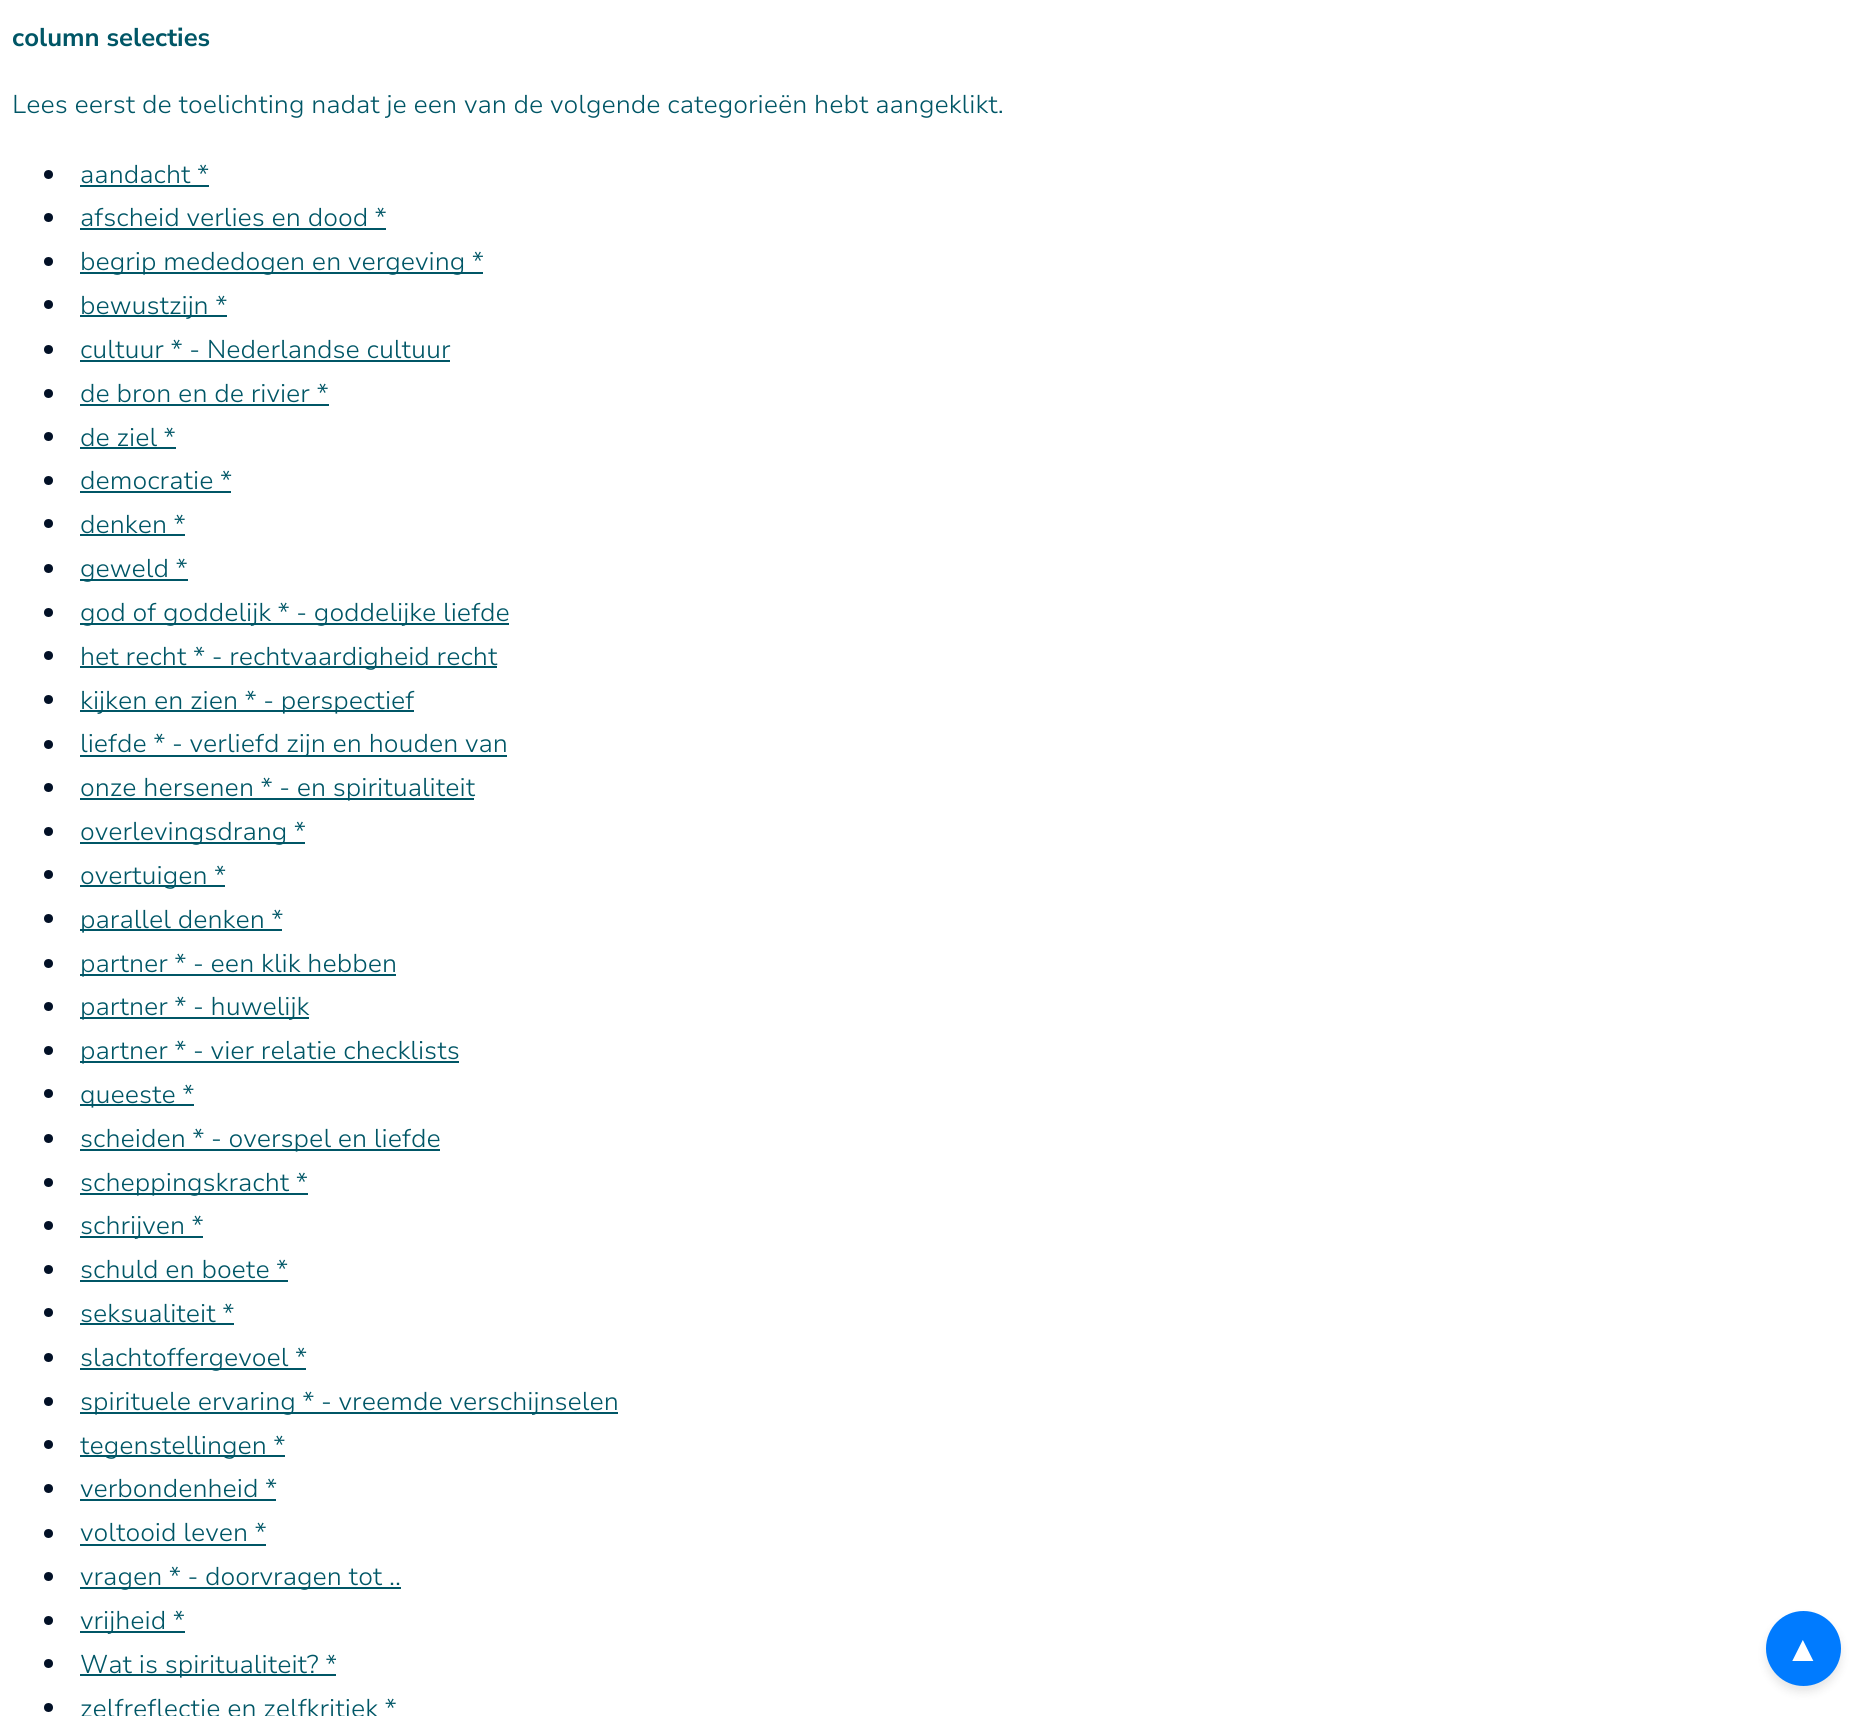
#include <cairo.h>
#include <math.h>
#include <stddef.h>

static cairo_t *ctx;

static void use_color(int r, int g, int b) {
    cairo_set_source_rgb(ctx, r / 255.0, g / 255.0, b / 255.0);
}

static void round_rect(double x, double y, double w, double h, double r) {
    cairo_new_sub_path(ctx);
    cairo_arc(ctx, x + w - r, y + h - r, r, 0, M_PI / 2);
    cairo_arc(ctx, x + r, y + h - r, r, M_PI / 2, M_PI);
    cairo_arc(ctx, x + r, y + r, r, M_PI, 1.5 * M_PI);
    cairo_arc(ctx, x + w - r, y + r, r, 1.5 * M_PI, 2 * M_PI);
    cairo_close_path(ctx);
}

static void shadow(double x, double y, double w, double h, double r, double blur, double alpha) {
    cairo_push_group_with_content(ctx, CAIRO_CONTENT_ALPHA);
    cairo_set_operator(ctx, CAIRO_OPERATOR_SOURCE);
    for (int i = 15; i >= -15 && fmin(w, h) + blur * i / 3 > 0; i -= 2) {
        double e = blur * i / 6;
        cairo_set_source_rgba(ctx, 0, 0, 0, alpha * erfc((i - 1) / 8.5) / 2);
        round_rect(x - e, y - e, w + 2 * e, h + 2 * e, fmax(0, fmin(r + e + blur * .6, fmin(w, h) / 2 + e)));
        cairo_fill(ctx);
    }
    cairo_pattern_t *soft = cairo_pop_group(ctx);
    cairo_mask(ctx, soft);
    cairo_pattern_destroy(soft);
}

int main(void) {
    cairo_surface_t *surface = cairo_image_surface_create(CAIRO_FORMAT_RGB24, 1870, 1716);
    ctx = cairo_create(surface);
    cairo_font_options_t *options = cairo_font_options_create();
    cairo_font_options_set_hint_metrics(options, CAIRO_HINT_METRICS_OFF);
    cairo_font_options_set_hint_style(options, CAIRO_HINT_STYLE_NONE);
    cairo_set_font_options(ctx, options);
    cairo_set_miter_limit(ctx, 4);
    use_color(255, 255, 255);
    cairo_paint(ctx);
    cairo_select_font_face(ctx, "Nunito Sans", CAIRO_FONT_SLANT_NORMAL, CAIRO_FONT_WEIGHT_BOLD);
    cairo_set_font_size(ctx, 25.7);
    use_color(0, 86, 102);
    cairo_move_to(ctx, 12, 46);
    cairo_show_text(ctx, "column selecties");
    cairo_select_font_face(ctx, "Nunito Sans Light", CAIRO_FONT_SLANT_NORMAL, CAIRO_FONT_WEIGHT_NORMAL);
    cairo_move_to(ctx, 12, 113);
    cairo_show_text(ctx, "Lees eerst de toelichting nadat je een van de volgende categorieën hebt aangeklikt.");
    use_color(2, 16, 38);
    cairo_new_path(ctx);
    cairo_arc(ctx, 48.5, 174.5, 4.5, 0, 2 * M_PI);
    cairo_fill(ctx);
    use_color(0, 86, 102);
    cairo_move_to(ctx, 80, 183);
    cairo_show_text(ctx, "aandacht *");
    cairo_rectangle(ctx, 80, 185, 129, 2);
    cairo_fill(ctx);
    use_color(2, 16, 38);
    cairo_arc(ctx, 48.5, 217.5, 4.5, 0, 2 * M_PI);
    cairo_fill(ctx);
    use_color(0, 86, 102);
    cairo_move_to(ctx, 80, 226);
    cairo_show_text(ctx, "afscheid verlies en dood *");
    cairo_rectangle(ctx, 80, 228, 306, 2);
    cairo_fill(ctx);
    use_color(2, 16, 38);
    cairo_arc(ctx, 48.5, 261.5, 4.5, 0, 2 * M_PI);
    cairo_fill(ctx);
    use_color(0, 86, 102);
    cairo_rectangle(ctx, 80, 272, 403, 2);
    cairo_fill(ctx);
    cairo_move_to(ctx, 80, 270);
    cairo_show_text(ctx, "begrip mededogen en vergeving *");
    use_color(2, 16, 38);
    cairo_new_path(ctx);
    cairo_arc(ctx, 48.5, 304.5, 4.5, 0, 2 * M_PI);
    cairo_fill(ctx);
    use_color(0, 86, 102);
    cairo_rectangle(ctx, 80, 315, 147, 2);
    cairo_fill(ctx);
    cairo_move_to(ctx, 80, 314);
    cairo_show_text(ctx, "bewustzijn *");
    use_color(2, 16, 38);
    cairo_new_path(ctx);
    cairo_arc(ctx, 48.5, 349.5, 4.5, 0, 2 * M_PI);
    cairo_fill(ctx);
    use_color(0, 86, 102);
    cairo_move_to(ctx, 80, 358);
    cairo_show_text(ctx, "cultuur * - Nederlandse cultuur");
    cairo_rectangle(ctx, 80, 360, 370, 2);
    cairo_fill(ctx);
    use_color(2, 16, 38);
    cairo_arc(ctx, 48.5, 393.5, 4.5, 0, 2 * M_PI);
    cairo_fill(ctx);
    use_color(0, 86, 102);
    cairo_move_to(ctx, 80, 402);
    cairo_show_text(ctx, "de bron en de rivier *");
    cairo_rectangle(ctx, 80, 404, 249, 2);
    cairo_fill(ctx);
    use_color(2, 16, 38);
    cairo_arc(ctx, 48.5, 436.5, 4.5, 0, 2 * M_PI);
    cairo_fill(ctx);
    use_color(0, 86, 102);
    cairo_move_to(ctx, 80, 446);
    cairo_show_text(ctx, "de ziel *");
    cairo_rectangle(ctx, 80, 447, 96, 2);
    cairo_fill(ctx);
    use_color(2, 16, 38);
    cairo_arc(ctx, 48.5, 480.5, 4.5, 0, 2 * M_PI);
    cairo_fill(ctx);
    use_color(0, 86, 102);
    cairo_move_to(ctx, 80, 489);
    cairo_show_text(ctx, "democratie *");
    cairo_rectangle(ctx, 80, 491, 151, 2);
    cairo_fill(ctx);
    use_color(2, 16, 38);
    cairo_arc(ctx, 48.5, 523.5, 4.5, 0, 2 * M_PI);
    cairo_fill(ctx);
    use_color(0, 86, 102);
    cairo_move_to(ctx, 80, 533);
    cairo_show_text(ctx, "denken *");
    cairo_rectangle(ctx, 80, 534, 105, 2);
    cairo_fill(ctx);
    use_color(2, 16, 38);
    cairo_arc(ctx, 48.5, 568.5, 4.5, 0, 2 * M_PI);
    cairo_fill(ctx);
    use_color(0, 86, 102);
    cairo_rectangle(ctx, 80, 579, 108, 2);
    cairo_fill(ctx);
    cairo_move_to(ctx, 80, 577);
    cairo_show_text(ctx, "geweld *");
    use_color(2, 16, 38);
    cairo_new_path(ctx);
    cairo_arc(ctx, 48.5, 612.5, 4.5, 0, 2 * M_PI);
    cairo_fill(ctx);
    use_color(0, 86, 102);
    cairo_rectangle(ctx, 80, 623, 429, 2);
    cairo_fill(ctx);
    cairo_move_to(ctx, 80, 621);
    cairo_show_text(ctx, "god of goddelijk * - goddelijke liefde");
    use_color(2, 16, 38);
    cairo_new_path(ctx);
    cairo_arc(ctx, 48.5, 655.5, 4.5, 0, 2 * M_PI);
    cairo_fill(ctx);
    use_color(0, 86, 102);
    cairo_rectangle(ctx, 80, 666, 417, 2);
    cairo_fill(ctx);
    cairo_move_to(ctx, 80, 665);
    cairo_show_text(ctx, "het recht * - rechtvaardigheid recht");
    use_color(2, 16, 38);
    cairo_new_path(ctx);
    cairo_arc(ctx, 48.5, 699.5, 4.5, 0, 2 * M_PI);
    cairo_fill(ctx);
    use_color(0, 86, 102);
    cairo_rectangle(ctx, 80, 710, 334, 2);
    cairo_fill(ctx);
    cairo_move_to(ctx, 80, 709);
    cairo_show_text(ctx, "kijken en zien * - perspectief");
    use_color(2, 16, 38);
    cairo_new_path(ctx);
    cairo_arc(ctx, 48.5, 744.5, 4.5, 0, 2 * M_PI);
    cairo_fill(ctx);
    use_color(0, 86, 102);
    cairo_rectangle(ctx, 80, 755, 427, 2);
    cairo_fill(ctx);
    cairo_move_to(ctx, 80, 752);
    cairo_show_text(ctx, "liefde * - verliefd zijn en houden van");
    use_color(2, 16, 38);
    cairo_new_path(ctx);
    cairo_arc(ctx, 48.5, 787.5, 4.5, 0, 2 * M_PI);
    cairo_fill(ctx);
    use_color(0, 86, 102);
    cairo_rectangle(ctx, 80, 798, 394, 2);
    cairo_fill(ctx);
    cairo_move_to(ctx, 80, 796);
    cairo_show_text(ctx, "onze hersenen * - en spiritualiteit");
    use_color(2, 16, 38);
    cairo_new_path(ctx);
    cairo_arc(ctx, 48.5, 831.5, 4.5, 0, 2 * M_PI);
    cairo_fill(ctx);
    use_color(0, 86, 102);
    cairo_rectangle(ctx, 80, 842, 225, 2);
    cairo_fill(ctx);
    cairo_move_to(ctx, 80, 840);
    cairo_show_text(ctx, "overlevingsdrang *");
    use_color(2, 16, 38);
    cairo_new_path(ctx);
    cairo_arc(ctx, 48.5, 874.5, 4.5, 0, 2 * M_PI);
    cairo_fill(ctx);
    use_color(0, 86, 102);
    cairo_rectangle(ctx, 80, 885, 145, 2);
    cairo_fill(ctx);
    cairo_move_to(ctx, 80, 884);
    cairo_show_text(ctx, "overtuigen *");
    use_color(2, 16, 38);
    cairo_new_path(ctx);
    cairo_arc(ctx, 48.5, 918.5, 4.5, 0, 2 * M_PI);
    cairo_fill(ctx);
    use_color(0, 86, 102);
    cairo_rectangle(ctx, 80, 929, 202, 2);
    cairo_fill(ctx);
    cairo_move_to(ctx, 80, 928);
    cairo_show_text(ctx, "parallel denken *");
    use_color(2, 16, 38);
    cairo_new_path(ctx);
    cairo_arc(ctx, 48.5, 963.5, 4.5, 0, 2 * M_PI);
    cairo_fill(ctx);
    use_color(0, 86, 102);
    cairo_rectangle(ctx, 80, 974, 316, 2);
    cairo_fill(ctx);
    cairo_move_to(ctx, 80, 972);
    cairo_show_text(ctx, "partner * - een klik hebben");
    use_color(2, 16, 38);
    cairo_new_path(ctx);
    cairo_arc(ctx, 48.5, 1006.5, 4.5, 0, 2 * M_PI);
    cairo_fill(ctx);
    use_color(0, 86, 102);
    cairo_rectangle(ctx, 80, 1017, 229, 2);
    cairo_fill(ctx);
    cairo_move_to(ctx, 80, 1015);
    cairo_show_text(ctx, "partner * - huwelijk");
    use_color(2, 16, 38);
    cairo_new_path(ctx);
    cairo_arc(ctx, 48.5, 1050.5, 4.5, 0, 2 * M_PI);
    cairo_fill(ctx);
    use_color(0, 86, 102);
    cairo_rectangle(ctx, 80, 1061, 379, 2);
    cairo_fill(ctx);
    cairo_move_to(ctx, 80, 1059);
    cairo_show_text(ctx, "partner * - vier relatie checklists");
    use_color(2, 16, 38);
    cairo_new_path(ctx);
    cairo_arc(ctx, 48.5, 1093.5, 4.5, 0, 2 * M_PI);
    cairo_fill(ctx);
    use_color(0, 86, 102);
    cairo_rectangle(ctx, 80, 1104, 114, 2);
    cairo_fill(ctx);
    cairo_move_to(ctx, 80, 1103);
    cairo_show_text(ctx, "queeste *");
    use_color(2, 16, 38);
    cairo_new_path(ctx);
    cairo_arc(ctx, 48.5, 1138.5, 4.5, 0, 2 * M_PI);
    cairo_fill(ctx);
    use_color(0, 86, 102);
    cairo_rectangle(ctx, 80, 1149, 360, 2);
    cairo_fill(ctx);
    cairo_move_to(ctx, 80, 1147);
    cairo_show_text(ctx, "scheiden * - overspel en liefde");
    use_color(2, 16, 38);
    cairo_new_path(ctx);
    cairo_arc(ctx, 48.5, 1182.5, 4.5, 0, 2 * M_PI);
    cairo_fill(ctx);
    use_color(0, 86, 102);
    cairo_rectangle(ctx, 80, 1193, 228, 2);
    cairo_fill(ctx);
    cairo_move_to(ctx, 80, 1191);
    cairo_show_text(ctx, "scheppingskracht *");
    use_color(2, 16, 38);
    cairo_new_path(ctx);
    cairo_arc(ctx, 48.5, 1225.5, 4.5, 0, 2 * M_PI);
    cairo_fill(ctx);
    use_color(0, 86, 102);
    cairo_rectangle(ctx, 80, 1236, 123, 2);
    cairo_fill(ctx);
    cairo_move_to(ctx, 80, 1234);
    cairo_show_text(ctx, "schrijven *");
    use_color(2, 16, 38);
    cairo_new_path(ctx);
    cairo_arc(ctx, 48.5, 1269.5, 4.5, 0, 2 * M_PI);
    cairo_fill(ctx);
    use_color(0, 86, 102);
    cairo_move_to(ctx, 80, 1278);
    cairo_show_text(ctx, "schuld en boete *");
    cairo_rectangle(ctx, 80, 1280, 208, 2);
    cairo_fill(ctx);
    use_color(2, 16, 38);
    cairo_arc(ctx, 48.5, 1312.5, 4.5, 0, 2 * M_PI);
    cairo_fill(ctx);
    use_color(0, 86, 102);
    cairo_move_to(ctx, 80, 1322);
    cairo_show_text(ctx, "seksualiteit *");
    cairo_rectangle(ctx, 80, 1323, 154, 2);
    cairo_fill(ctx);
    use_color(2, 16, 38);
    cairo_arc(ctx, 48.5, 1357.5, 4.5, 0, 2 * M_PI);
    cairo_fill(ctx);
    use_color(0, 86, 102);
    cairo_rectangle(ctx, 80, 1368, 226, 2);
    cairo_fill(ctx);
    cairo_move_to(ctx, 80, 1366);
    cairo_show_text(ctx, "slachtoffergevoel *");
    use_color(2, 16, 38);
    cairo_new_path(ctx);
    cairo_arc(ctx, 48.5, 1401.5, 4.5, 0, 2 * M_PI);
    cairo_fill(ctx);
    use_color(0, 86, 102);
    cairo_rectangle(ctx, 80, 1412, 538, 2);
    cairo_fill(ctx);
    cairo_move_to(ctx, 80, 1410);
    cairo_show_text(ctx, "spirituele ervaring * - vreemde verschijnselen");
    use_color(2, 16, 38);
    cairo_new_path(ctx);
    cairo_arc(ctx, 48.5, 1444.5, 4.5, 0, 2 * M_PI);
    cairo_fill(ctx);
    use_color(0, 86, 102);
    cairo_rectangle(ctx, 80, 1455, 205, 2);
    cairo_fill(ctx);
    cairo_move_to(ctx, 80, 1454);
    cairo_show_text(ctx, "tegenstellingen *");
    use_color(2, 16, 38);
    cairo_new_path(ctx);
    cairo_arc(ctx, 48.5, 1488.5, 4.5, 0, 2 * M_PI);
    cairo_fill(ctx);
    use_color(0, 86, 102);
    cairo_move_to(ctx, 80, 1497);
    cairo_show_text(ctx, "verbondenheid *");
    cairo_rectangle(ctx, 80, 1499, 196, 2);
    cairo_fill(ctx);
    use_color(2, 16, 38);
    cairo_arc(ctx, 48.5, 1533.5, 4.5, 0, 2 * M_PI);
    cairo_fill(ctx);
    use_color(0, 86, 102);
    cairo_move_to(ctx, 80, 1541);
    cairo_show_text(ctx, "voltooid leven *");
    cairo_rectangle(ctx, 80, 1544, 186, 2);
    cairo_fill(ctx);
    use_color(2, 16, 38);
    cairo_arc(ctx, 48.5, 1576.5, 4.5, 0, 2 * M_PI);
    cairo_fill(ctx);
    use_color(0, 86, 102);
    cairo_rectangle(ctx, 80, 1587, 321, 2);
    cairo_fill(ctx);
    cairo_move_to(ctx, 80, 1585);
    cairo_show_text(ctx, "vragen * - doorvragen tot ..");
    use_color(2, 16, 38);
    cairo_new_path(ctx);
    cairo_arc(ctx, 48.5, 1620.5, 4.5, 0, 2 * M_PI);
    cairo_fill(ctx);
    use_color(0, 86, 102);
    cairo_rectangle(ctx, 80, 1631, 105, 2);
    cairo_fill(ctx);
    cairo_move_to(ctx, 80, 1629);
    cairo_show_text(ctx, "vrijheid *");
    use_color(2, 16, 38);
    cairo_new_path(ctx);
    cairo_arc(ctx, 48.5, 1663.5, 4.5, 0, 2 * M_PI);
    cairo_fill(ctx);
    use_color(0, 86, 102);
    cairo_rectangle(ctx, 80, 1674, 256, 2);
    cairo_fill(ctx);
    cairo_move_to(ctx, 80, 1673);
    cairo_show_text(ctx, "Wat is spiritualiteit? *");
    use_color(2, 16, 38);
    cairo_new_path(ctx);
    cairo_arc(ctx, 48.5, 1707.5, 4.5, 0, 2 * M_PI);
    cairo_fill(ctx);
    use_color(0, 86, 102);
    cairo_move_to(ctx, 80, 1717);
    cairo_show_text(ctx, "zelfreflectie en zelfkritiek *");
    use_color(0, 0, 0);
    shadow(1766, 1617, 75, 75, 37.5, 4.5, 0.1);
    use_color(0, 123, 255);
    cairo_arc(ctx, 1803.5, 1648.5, 37.5, 0, 2 * M_PI);
    cairo_fill(ctx);
    cairo_select_font_face(ctx, "Liberation Sans", CAIRO_FONT_SLANT_NORMAL, CAIRO_FONT_WEIGHT_NORMAL);
    cairo_set_font_size(ctx, 36);
    use_color(255, 255, 255);
    cairo_move_to(ctx, 1785, 1661);
    cairo_show_text(ctx, "▲");
    cairo_surface_write_to_png(surface, "result.png");
    cairo_font_options_destroy(options);
    cairo_destroy(ctx);
    cairo_surface_destroy(surface);
    return 0;
}
